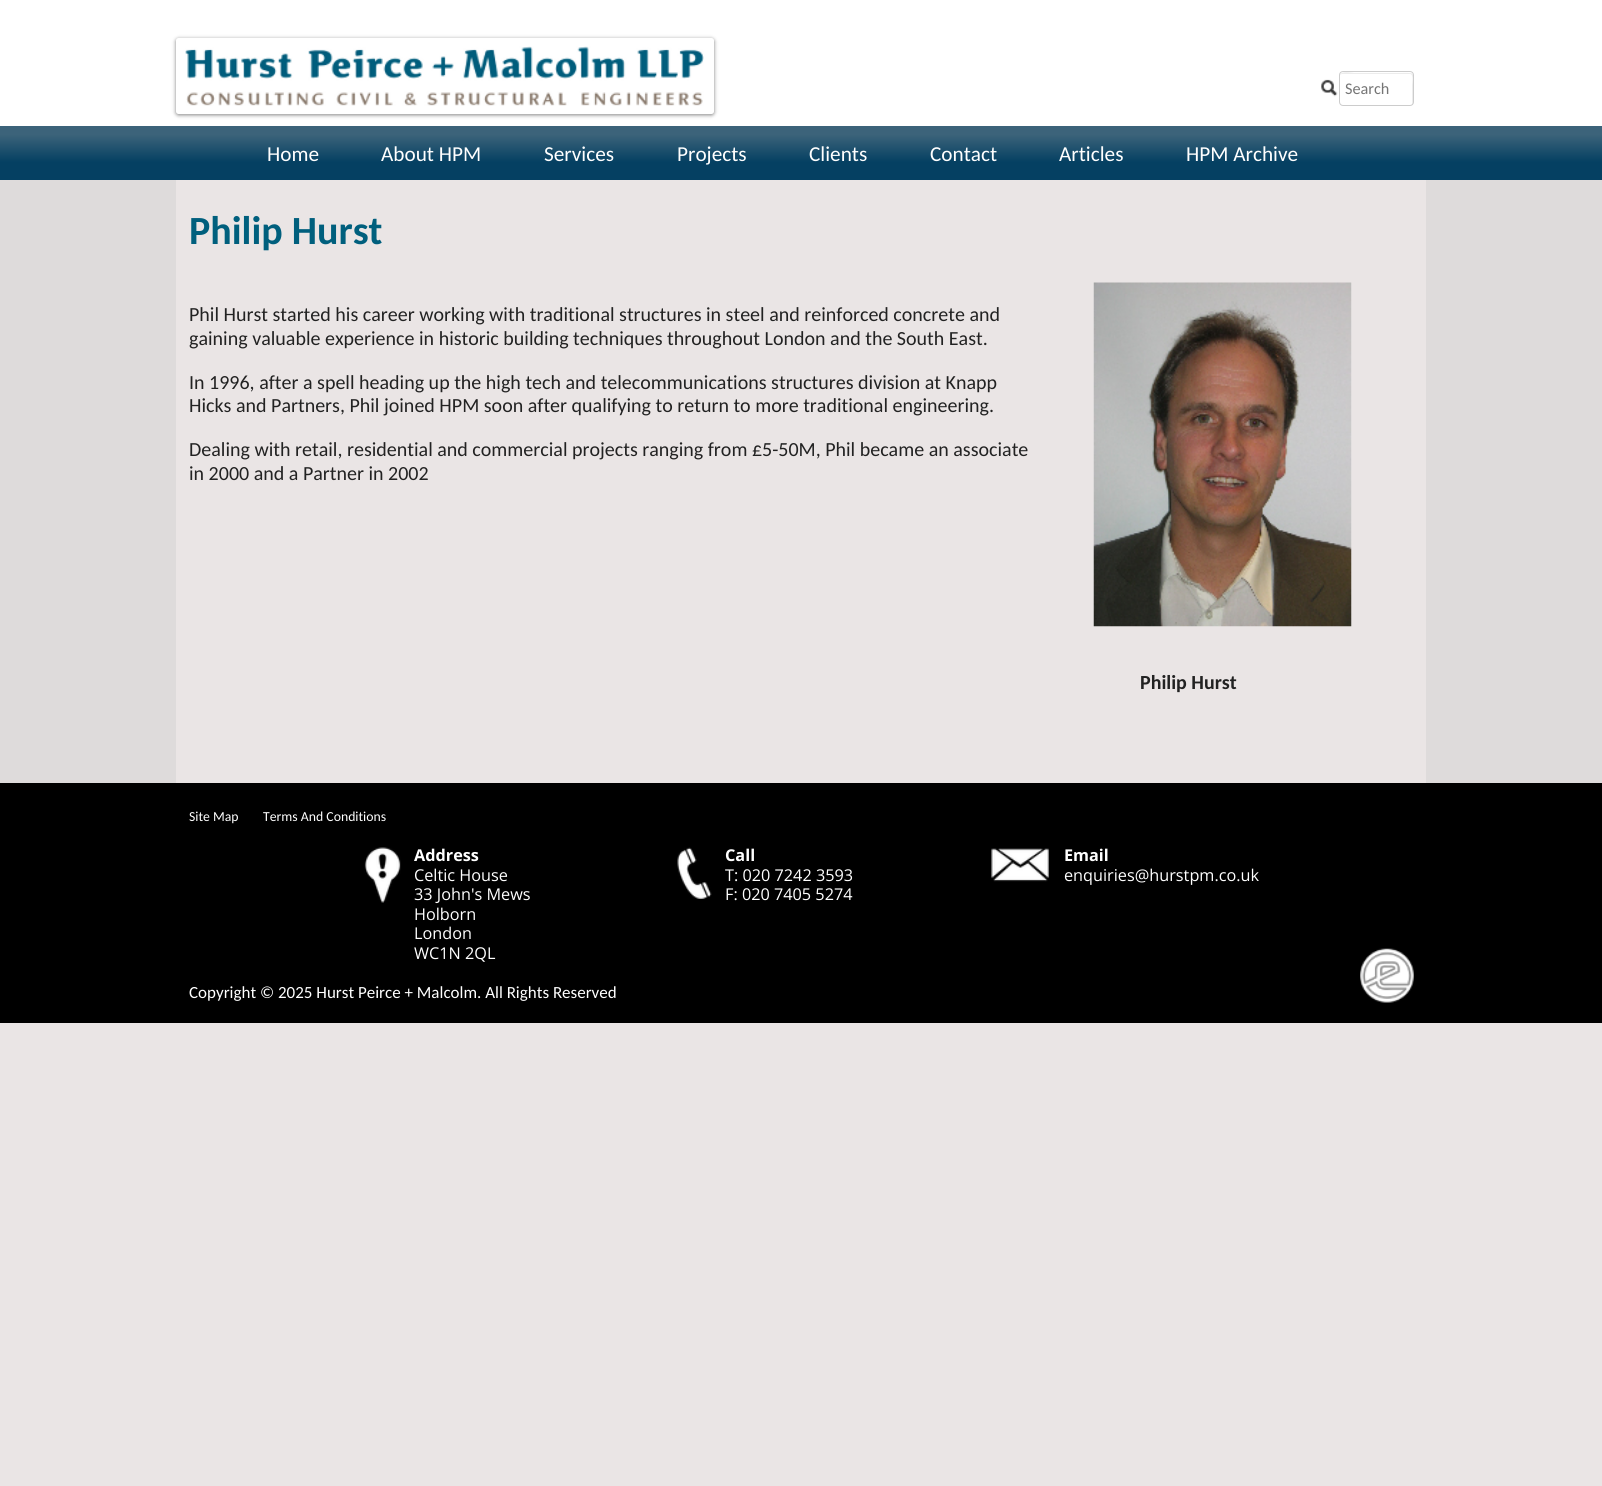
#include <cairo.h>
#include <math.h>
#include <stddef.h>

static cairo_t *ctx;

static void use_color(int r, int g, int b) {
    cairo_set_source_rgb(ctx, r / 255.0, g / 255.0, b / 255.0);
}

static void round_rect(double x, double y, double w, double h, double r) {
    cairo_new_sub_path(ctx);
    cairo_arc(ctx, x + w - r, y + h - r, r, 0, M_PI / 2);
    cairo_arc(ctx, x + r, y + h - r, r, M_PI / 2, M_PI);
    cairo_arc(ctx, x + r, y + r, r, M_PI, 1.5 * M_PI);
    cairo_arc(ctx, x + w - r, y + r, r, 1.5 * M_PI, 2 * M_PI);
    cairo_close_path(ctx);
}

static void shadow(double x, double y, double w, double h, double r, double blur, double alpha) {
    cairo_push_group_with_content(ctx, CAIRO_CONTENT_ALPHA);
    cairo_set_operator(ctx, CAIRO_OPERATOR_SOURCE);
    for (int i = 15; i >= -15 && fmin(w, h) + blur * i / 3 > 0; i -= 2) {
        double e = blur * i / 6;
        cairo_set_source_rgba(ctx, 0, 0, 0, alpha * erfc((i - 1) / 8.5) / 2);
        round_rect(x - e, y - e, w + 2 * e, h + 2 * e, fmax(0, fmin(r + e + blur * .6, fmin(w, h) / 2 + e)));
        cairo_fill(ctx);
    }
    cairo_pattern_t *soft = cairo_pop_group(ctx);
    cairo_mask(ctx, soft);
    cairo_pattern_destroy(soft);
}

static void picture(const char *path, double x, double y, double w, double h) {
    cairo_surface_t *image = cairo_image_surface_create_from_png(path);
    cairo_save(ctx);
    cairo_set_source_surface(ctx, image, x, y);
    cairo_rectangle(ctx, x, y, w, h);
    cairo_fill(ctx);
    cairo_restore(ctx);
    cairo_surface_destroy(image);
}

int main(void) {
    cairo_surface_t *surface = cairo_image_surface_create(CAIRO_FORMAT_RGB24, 1602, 1486);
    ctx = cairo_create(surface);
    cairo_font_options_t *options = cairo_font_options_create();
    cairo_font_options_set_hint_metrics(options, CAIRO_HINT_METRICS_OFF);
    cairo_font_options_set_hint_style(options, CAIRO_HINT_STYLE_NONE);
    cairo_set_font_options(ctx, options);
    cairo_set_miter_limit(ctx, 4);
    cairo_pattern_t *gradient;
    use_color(234, 229, 229);
    cairo_paint(ctx);
    use_color(255, 255, 255);
    cairo_rectangle(ctx, 0, 0, 1602, 126);
    cairo_fill(ctx);
    use_color(0, 0, 0);
    shadow(176, 39, 538, 76, 2.5, 2, 0.5);
    use_color(255, 255, 255);
    round_rect(177.5, 39.5, 535, 73, 1);
    cairo_fill_preserve(ctx);
    cairo_set_line_width(ctx, 3);
    cairo_stroke(ctx);
    picture("img1.png", 185, 46, 519, 60);
    picture("img2.png", 1321, 79, 17, 18);
    use_color(236, 236, 236);
    cairo_new_path(ctx);
    cairo_move_to(ctx, 1342, 74);
    cairo_line_to(ctx, 1410, 74);
    cairo_curve_to(ctx, 1414, 74, 1412, 84, 1412, 85);
    cairo_line_to(ctx, 1412, 105);
    cairo_curve_to(ctx, 1414, 103, 1413, 92, 1413, 89);
    cairo_curve_to(ctx, 1413, 71, 1417, 73, 1399, 73);
    cairo_line_to(ctx, 1354, 73);
    cairo_curve_to(ctx, 1352, 73, 1340, 70, 1340, 76);
    cairo_curve_to(ctx, 1340, 75, 1341, 74, 1342, 74);
    cairo_close_path(ctx);
    cairo_fill(ctx);
    round_rect(1339.5, 71.5, 74, 34, 3.5);
    use_color(204, 204, 204);
    cairo_set_line_width(ctx, 1);
    cairo_stroke(ctx);
    cairo_select_font_face(ctx, "Carlito", CAIRO_FONT_SLANT_NORMAL, CAIRO_FONT_WEIGHT_NORMAL);
    cairo_set_font_size(ctx, 16.25);
    use_color(117, 117, 117);
    cairo_move_to(ctx, 1345, 94);
    cairo_show_text(ctx, "Search");
    gradient = cairo_pattern_create_linear(801, 180, 801, 126);
    cairo_pattern_add_color_stop_rgba(gradient, 0.33, 0.02, 0.251, 0.384, 1);
    cairo_pattern_add_color_stop_rgba(gradient, 0.84, 0.235, 0.388, 0.478, 1);
    cairo_set_source(ctx, gradient);
    cairo_pattern_destroy(gradient);
    cairo_rectangle(ctx, 0, 126, 1602, 54);
    cairo_fill(ctx);
    cairo_set_font_size(ctx, 21.25);
    use_color(255, 255, 255);
    cairo_move_to(ctx, 267, 161);
    cairo_show_text(ctx, "Home");
    cairo_move_to(ctx, 381, 161);
    cairo_show_text(ctx, "About HPM");
    cairo_move_to(ctx, 544, 161);
    cairo_show_text(ctx, "Services");
    cairo_move_to(ctx, 677, 161);
    cairo_show_text(ctx, "Projects");
    cairo_move_to(ctx, 809, 161);
    cairo_show_text(ctx, "Clients");
    cairo_move_to(ctx, 930, 161);
    cairo_show_text(ctx, "Contact");
    cairo_move_to(ctx, 1059, 161);
    cairo_show_text(ctx, "Articles");
    cairo_move_to(ctx, 1186, 161);
    cairo_show_text(ctx, "HPM Archive");
    use_color(222, 219, 219);
    cairo_rectangle(ctx, 0, 180, 1602, 603);
    cairo_fill(ctx);
    use_color(234, 229, 229);
    cairo_rectangle(ctx, 176, 180, 1250, 603);
    cairo_fill(ctx);
    cairo_select_font_face(ctx, "Carlito", CAIRO_FONT_SLANT_NORMAL, CAIRO_FONT_WEIGHT_BOLD);
    cairo_set_font_size(ctx, 40);
    use_color(0, 95, 125);
    cairo_move_to(ctx, 189, 244);
    cairo_show_text(ctx, "Philip Hurst");
    cairo_select_font_face(ctx, "Carlito", CAIRO_FONT_SLANT_NORMAL, CAIRO_FONT_WEIGHT_NORMAL);
    cairo_set_font_size(ctx, 20);
    use_color(34, 34, 34);
    cairo_move_to(ctx, 189, 321);
    cairo_show_text(ctx, "Phil Hurst started his career working with traditional structures in steel and reinforced concrete and");
    cairo_move_to(ctx, 189, 345);
    cairo_show_text(ctx, "gaining valuable experience in historic building techniques throughout London and the South East.");
    cairo_move_to(ctx, 189, 389);
    cairo_show_text(ctx, "In 1996, after a spell heading up the high tech and telecommunications structures division at Knapp");
    cairo_move_to(ctx, 189, 412);
    cairo_show_text(ctx, "Hicks and Partners, Phil joined HPM soon after qualifying to return to more traditional engineering.");
    cairo_move_to(ctx, 189, 456);
    cairo_show_text(ctx, "Dealing with retail, residential and commercial projects ranging from £5-50M, Phil became an associate");
    cairo_move_to(ctx, 189, 480);
    cairo_show_text(ctx, "in 2000 and a Partner in 2002");
    picture("img3.png", 1093, 282, 259, 345);
    cairo_select_font_face(ctx, "Carlito", CAIRO_FONT_SLANT_NORMAL, CAIRO_FONT_WEIGHT_BOLD);
    cairo_move_to(ctx, 1140, 689);
    cairo_show_text(ctx, "Philip Hurst");
    use_color(0, 0, 0);
    cairo_rectangle(ctx, 0, 783, 1602, 240);
    cairo_fill(ctx);
    cairo_select_font_face(ctx, "Carlito", CAIRO_FONT_SLANT_NORMAL, CAIRO_FONT_WEIGHT_NORMAL);
    cairo_set_font_size(ctx, 13.75);
    use_color(255, 255, 255);
    cairo_move_to(ctx, 189, 821);
    cairo_show_text(ctx, "Site Map");
    cairo_move_to(ctx, 263, 821);
    cairo_show_text(ctx, "Terms And Conditions");
    picture("img4.png", 364, 847, 37, 56);
    cairo_select_font_face(ctx, "Open Sans", CAIRO_FONT_SLANT_NORMAL, CAIRO_FONT_WEIGHT_BOLD);
    cairo_set_font_size(ctx, 16.25);
    cairo_move_to(ctx, 414, 861);
    cairo_show_text(ctx, "Address");
    cairo_select_font_face(ctx, "Open Sans", CAIRO_FONT_SLANT_NORMAL, CAIRO_FONT_WEIGHT_NORMAL);
    cairo_move_to(ctx, 414, 881);
    cairo_show_text(ctx, "Celtic House");
    cairo_move_to(ctx, 414, 900);
    cairo_show_text(ctx, "33 John's Mews");
    cairo_move_to(ctx, 414, 920);
    cairo_show_text(ctx, "Holborn");
    cairo_move_to(ctx, 414, 939);
    cairo_show_text(ctx, "London");
    cairo_move_to(ctx, 414, 959);
    cairo_show_text(ctx, "WC1N 2QL");
    picture("img5.png", 677, 847, 35, 52);
    cairo_select_font_face(ctx, "Open Sans", CAIRO_FONT_SLANT_NORMAL, CAIRO_FONT_WEIGHT_BOLD);
    cairo_move_to(ctx, 725, 861);
    cairo_show_text(ctx, "Call");
    cairo_select_font_face(ctx, "Open Sans", CAIRO_FONT_SLANT_NORMAL, CAIRO_FONT_WEIGHT_NORMAL);
    cairo_move_to(ctx, 725, 881);
    cairo_show_text(ctx, "T: 020 7242 3593");
    cairo_move_to(ctx, 725, 900);
    cairo_show_text(ctx, "F: 020 7405 5274");
    picture("img6.png", 991, 848, 58, 34);
    cairo_select_font_face(ctx, "Open Sans", CAIRO_FONT_SLANT_NORMAL, CAIRO_FONT_WEIGHT_BOLD);
    cairo_move_to(ctx, 1064, 861);
    cairo_show_text(ctx, "Email");
    cairo_select_font_face(ctx, "Open Sans", CAIRO_FONT_SLANT_NORMAL, CAIRO_FONT_WEIGHT_NORMAL);
    cairo_move_to(ctx, 1064, 881);
    cairo_show_text(ctx, "enquiries@hurstpm.co.uk");
    cairo_select_font_face(ctx, "Carlito", CAIRO_FONT_SLANT_NORMAL, CAIRO_FONT_WEIGHT_NORMAL);
    cairo_set_font_size(ctx, 17);
    cairo_move_to(ctx, 189, 998);
    cairo_show_text(ctx, "Copyright © 2025 Hurst Peirce + Malcolm. All Rights Reserved");
    picture("img7.png", 1360, 948, 54, 55);
    cairo_surface_write_to_png(surface, "result.png");
    cairo_font_options_destroy(options);
    cairo_destroy(ctx);
    cairo_surface_destroy(surface);
    return 0;
}
